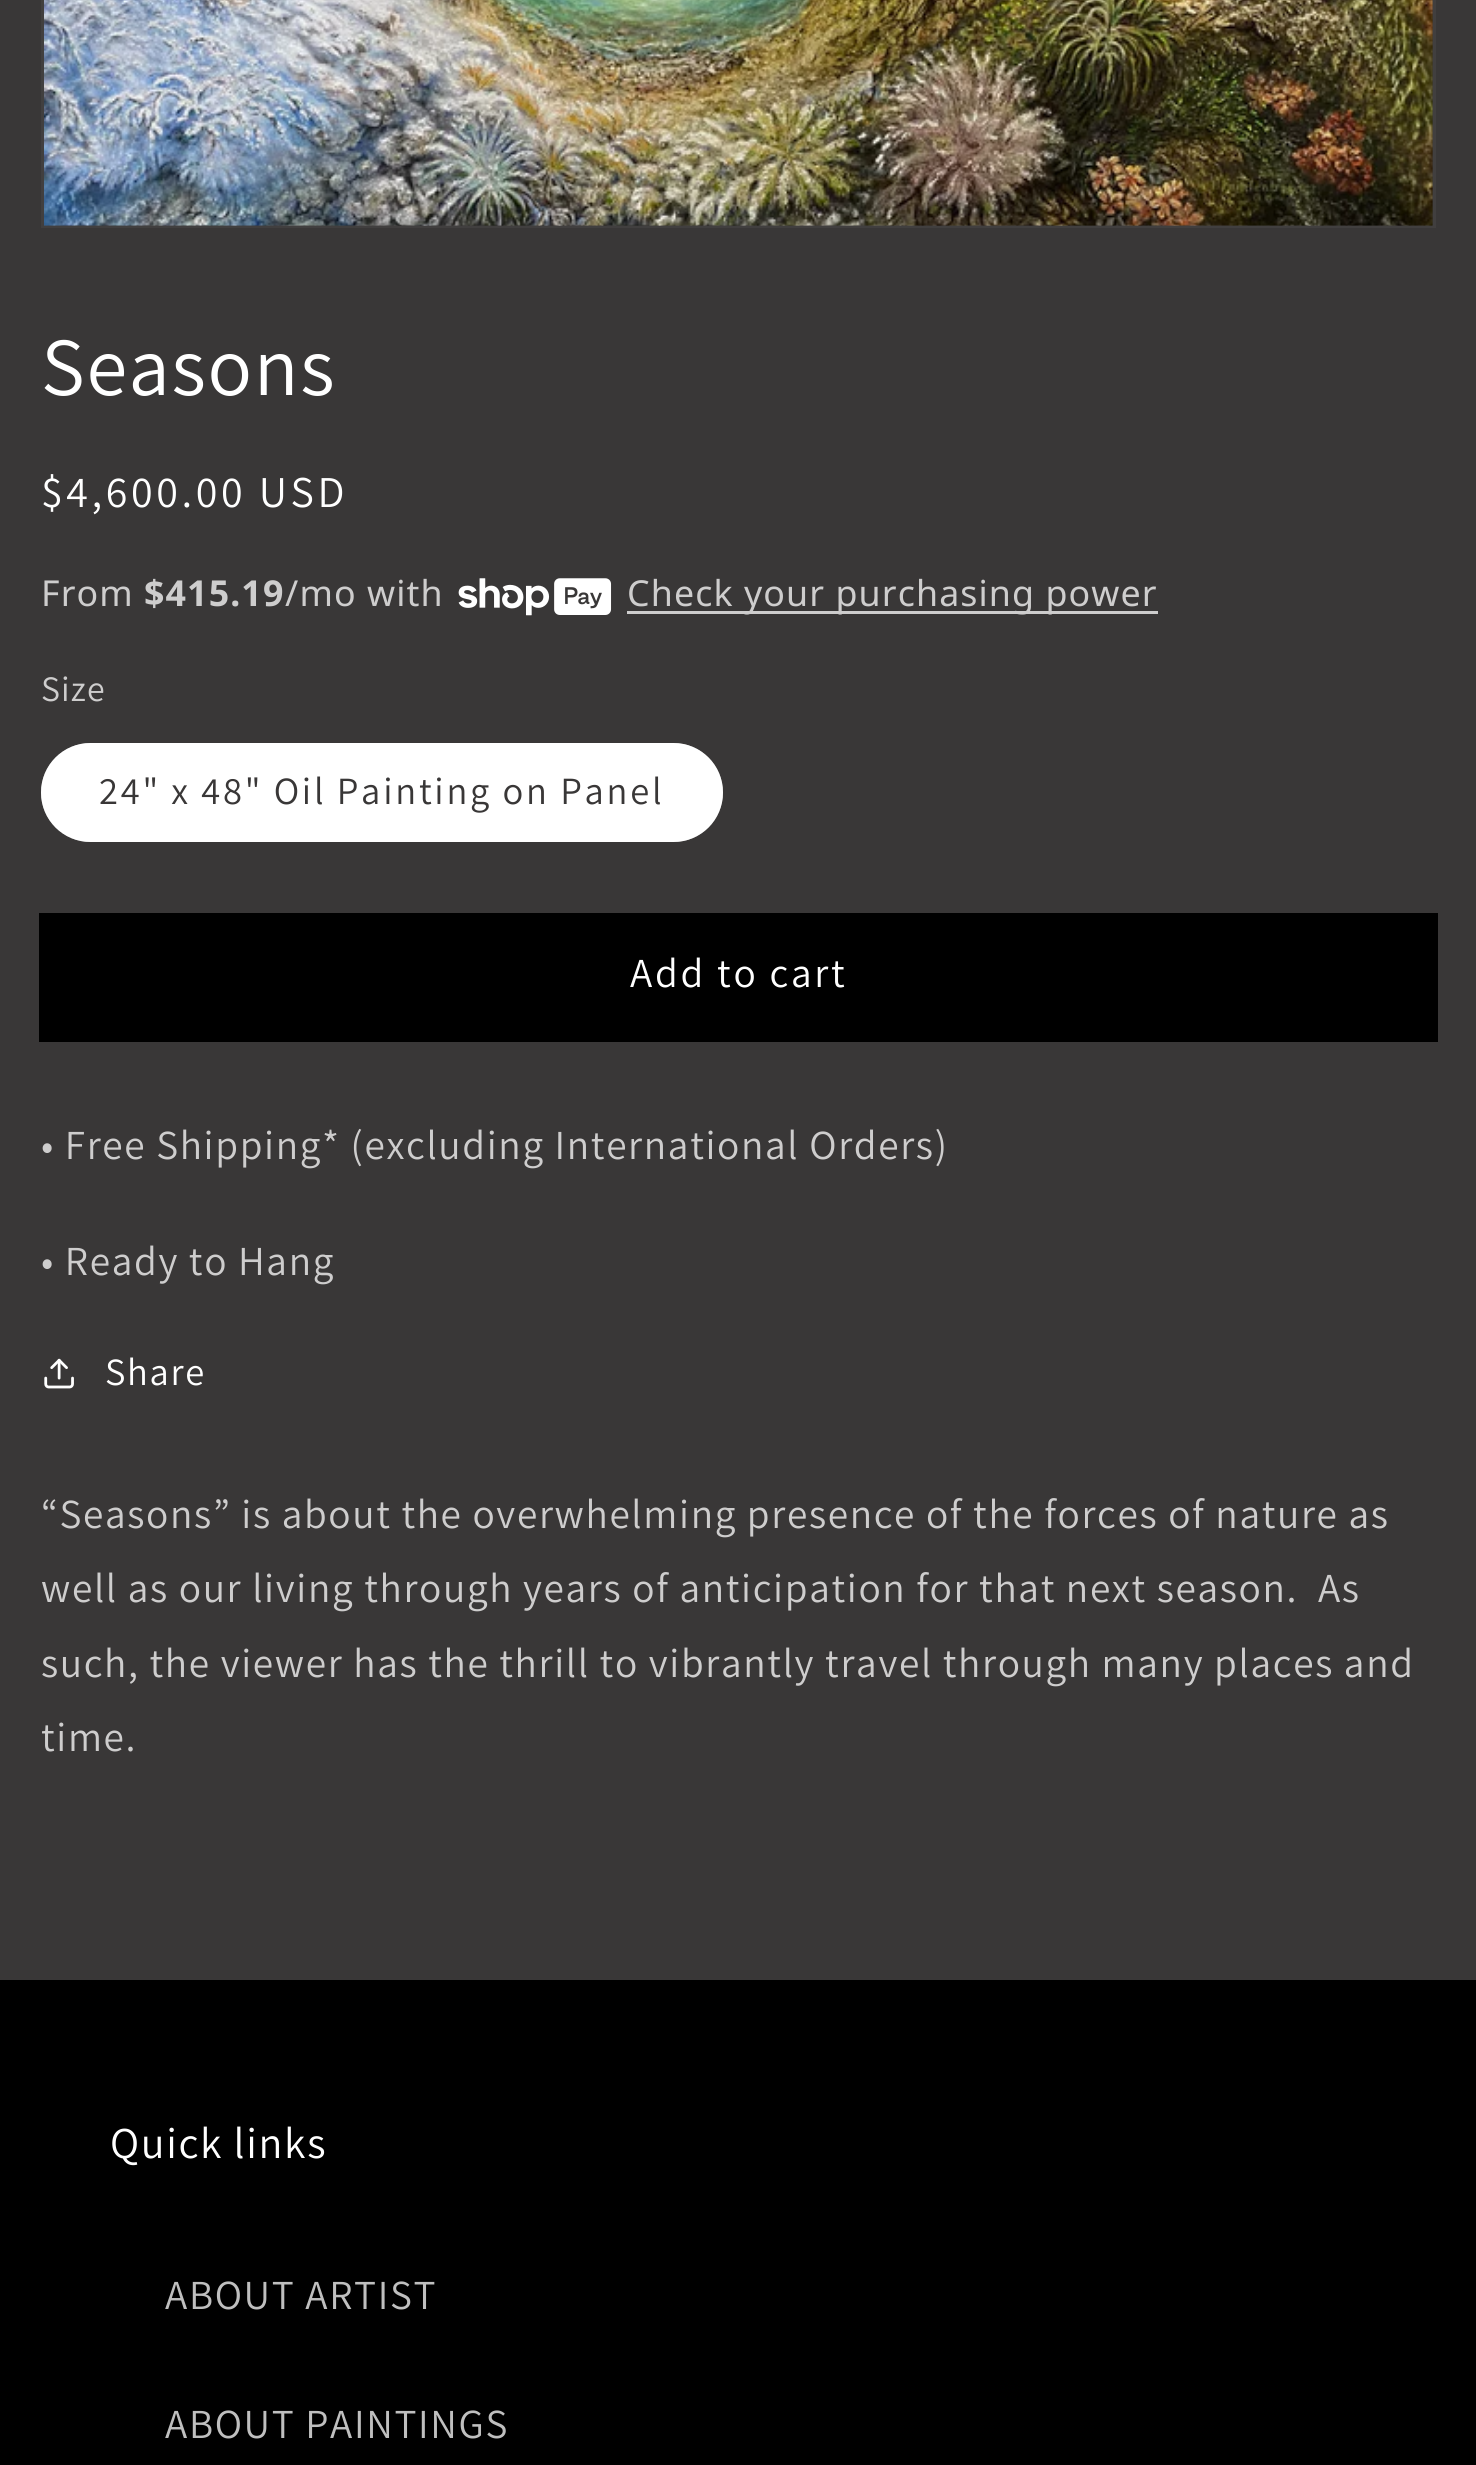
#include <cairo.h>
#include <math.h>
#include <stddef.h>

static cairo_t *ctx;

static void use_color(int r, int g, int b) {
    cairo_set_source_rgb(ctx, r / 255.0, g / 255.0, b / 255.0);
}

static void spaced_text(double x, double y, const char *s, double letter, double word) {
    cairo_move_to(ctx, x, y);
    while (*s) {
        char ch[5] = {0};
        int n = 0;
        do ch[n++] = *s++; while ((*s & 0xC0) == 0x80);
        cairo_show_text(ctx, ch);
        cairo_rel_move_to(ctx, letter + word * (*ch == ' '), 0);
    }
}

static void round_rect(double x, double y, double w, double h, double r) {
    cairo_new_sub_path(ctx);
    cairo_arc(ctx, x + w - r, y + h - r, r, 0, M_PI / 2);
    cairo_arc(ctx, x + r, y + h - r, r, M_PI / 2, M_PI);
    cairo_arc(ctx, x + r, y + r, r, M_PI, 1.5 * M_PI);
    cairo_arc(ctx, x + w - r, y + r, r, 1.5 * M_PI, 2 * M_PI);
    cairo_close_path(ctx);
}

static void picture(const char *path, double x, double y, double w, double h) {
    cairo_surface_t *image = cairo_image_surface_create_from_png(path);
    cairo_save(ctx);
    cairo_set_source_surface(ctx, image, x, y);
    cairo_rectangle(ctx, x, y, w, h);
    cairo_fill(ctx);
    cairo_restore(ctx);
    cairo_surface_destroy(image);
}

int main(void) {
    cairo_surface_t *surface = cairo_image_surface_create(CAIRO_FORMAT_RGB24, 1476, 2465);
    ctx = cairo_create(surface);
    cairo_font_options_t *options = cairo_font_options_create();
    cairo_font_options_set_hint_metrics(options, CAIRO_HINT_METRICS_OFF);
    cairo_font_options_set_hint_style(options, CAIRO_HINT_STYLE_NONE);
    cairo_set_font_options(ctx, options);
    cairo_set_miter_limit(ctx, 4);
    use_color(57, 55, 55);
    cairo_paint(ctx);
    cairo_rectangle(ctx, 42.5, -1.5, 1392, 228);
    use_color(65, 63, 63);
    cairo_set_line_width(ctx, 3);
    cairo_stroke(ctx);
    picture("img1.png", 44, 0, 1389, 226);
    cairo_select_font_face(ctx, "Assistant", CAIRO_FONT_SLANT_NORMAL, CAIRO_FONT_WEIGHT_NORMAL);
    cairo_set_font_size(ctx, 82.5);
    use_color(255, 255, 255);
    spaced_text(41, 395, "Seasons", 1.65, 0);
    cairo_set_font_size(ctx, 44);
    spaced_text(41, 507, "$4,600.00 USD", 3.6, 0);
    cairo_select_font_face(ctx, "Noto Sans", CAIRO_FONT_SLANT_NORMAL, CAIRO_FONT_WEIGHT_NORMAL);
    cairo_set_font_size(ctx, 35.75);
    use_color(206, 205, 205);
    spaced_text(41, 606, "From", 1.1, 0);
    cairo_select_font_face(ctx, "Noto Sans", CAIRO_FONT_SLANT_NORMAL, CAIRO_FONT_WEIGHT_BOLD);
    spaced_text(144, 606, "$415.19", 1.1, 0);
    cairo_select_font_face(ctx, "Noto Sans", CAIRO_FONT_SLANT_NORMAL, CAIRO_FONT_WEIGHT_NORMAL);
    spaced_text(285, 606, "/mo with", 1.1, 0);
    picture("img2.png", 458, 578, 154, 38);
    cairo_rectangle(ctx, 627, 611, 531, 3);
    cairo_fill(ctx);
    spaced_text(627, 606, "Check your purchasing power", 1.1, 0);
    cairo_select_font_face(ctx, "Assistant", CAIRO_FONT_SLANT_NORMAL, CAIRO_FONT_WEIGHT_NORMAL);
    spaced_text(41, 701, "Size", 1.1, 0);
    use_color(255, 255, 255);
    round_rect(41, 743, 682, 99, 49.5);
    cairo_fill(ctx);
    round_rect(42.5, 744.5, 679, 96, 48);
    cairo_set_source_rgba(ctx, 1, 1, 1, 0.55);
    cairo_stroke(ctx);
    cairo_set_font_size(ctx, 38.5);
    use_color(57, 55, 55);
    spaced_text(99, 804, "24\" x 48\" Oil Painting on Panel", 2.75, 0);
    cairo_rectangle(ctx, 40.5, 914.5, 1396, 126);
    use_color(0, 0, 0);
    cairo_stroke(ctx);
    cairo_rectangle(ctx, 42, 916, 1393, 123);
    cairo_fill(ctx);
    cairo_set_font_size(ctx, 41.25);
    use_color(255, 255, 255);
    spaced_text(630, 987, "Add to cart", 2.75, 0);
    use_color(206, 205, 205);
    spaced_text(41, 1159, "• Free Shipping* (excluding International Orders)", 1.65, 0);
    spaced_text(41, 1275, "• Ready to Hang", 1.65, 0);
    picture("img3.png", 44, 1358, 30, 31);
    cairo_set_font_size(ctx, 38.5);
    use_color(255, 255, 255);
    spaced_text(105, 1385, "Share", 1.65, 0);
    cairo_set_font_size(ctx, 41.25);
    use_color(206, 205, 205);
    spaced_text(41, 1528, "“Seasons” is about the overwhelming presence of the forces of nature as", 1.65, 0);
    spaced_text(41, 1602, "well as our living through years of anticipation for that next season.  As", 1.65, 0);
    spaced_text(41, 1677, "such, the viewer has the thrill to vibrantly travel through many places and", 1.65, 0);
    spaced_text(41, 1751, "time.", 1.65, 0);
    use_color(0, 0, 0);
    cairo_rectangle(ctx, 0, 1980, 1476, 485);
    cairo_fill(ctx);
    cairo_set_font_size(ctx, 44);
    use_color(255, 255, 255);
    spaced_text(110, 2158, "Quick links", 1.65, 0);
    cairo_set_font_size(ctx, 41.25);
    use_color(191, 191, 191);
    spaced_text(165, 2309, "ABOUT ARTIST", 1.65, 0);
    spaced_text(165, 2438, "ABOUT PAINTINGS", 1.65, 0);
    cairo_surface_write_to_png(surface, "result.png");
    cairo_font_options_destroy(options);
    cairo_destroy(ctx);
    cairo_surface_destroy(surface);
    return 0;
}
